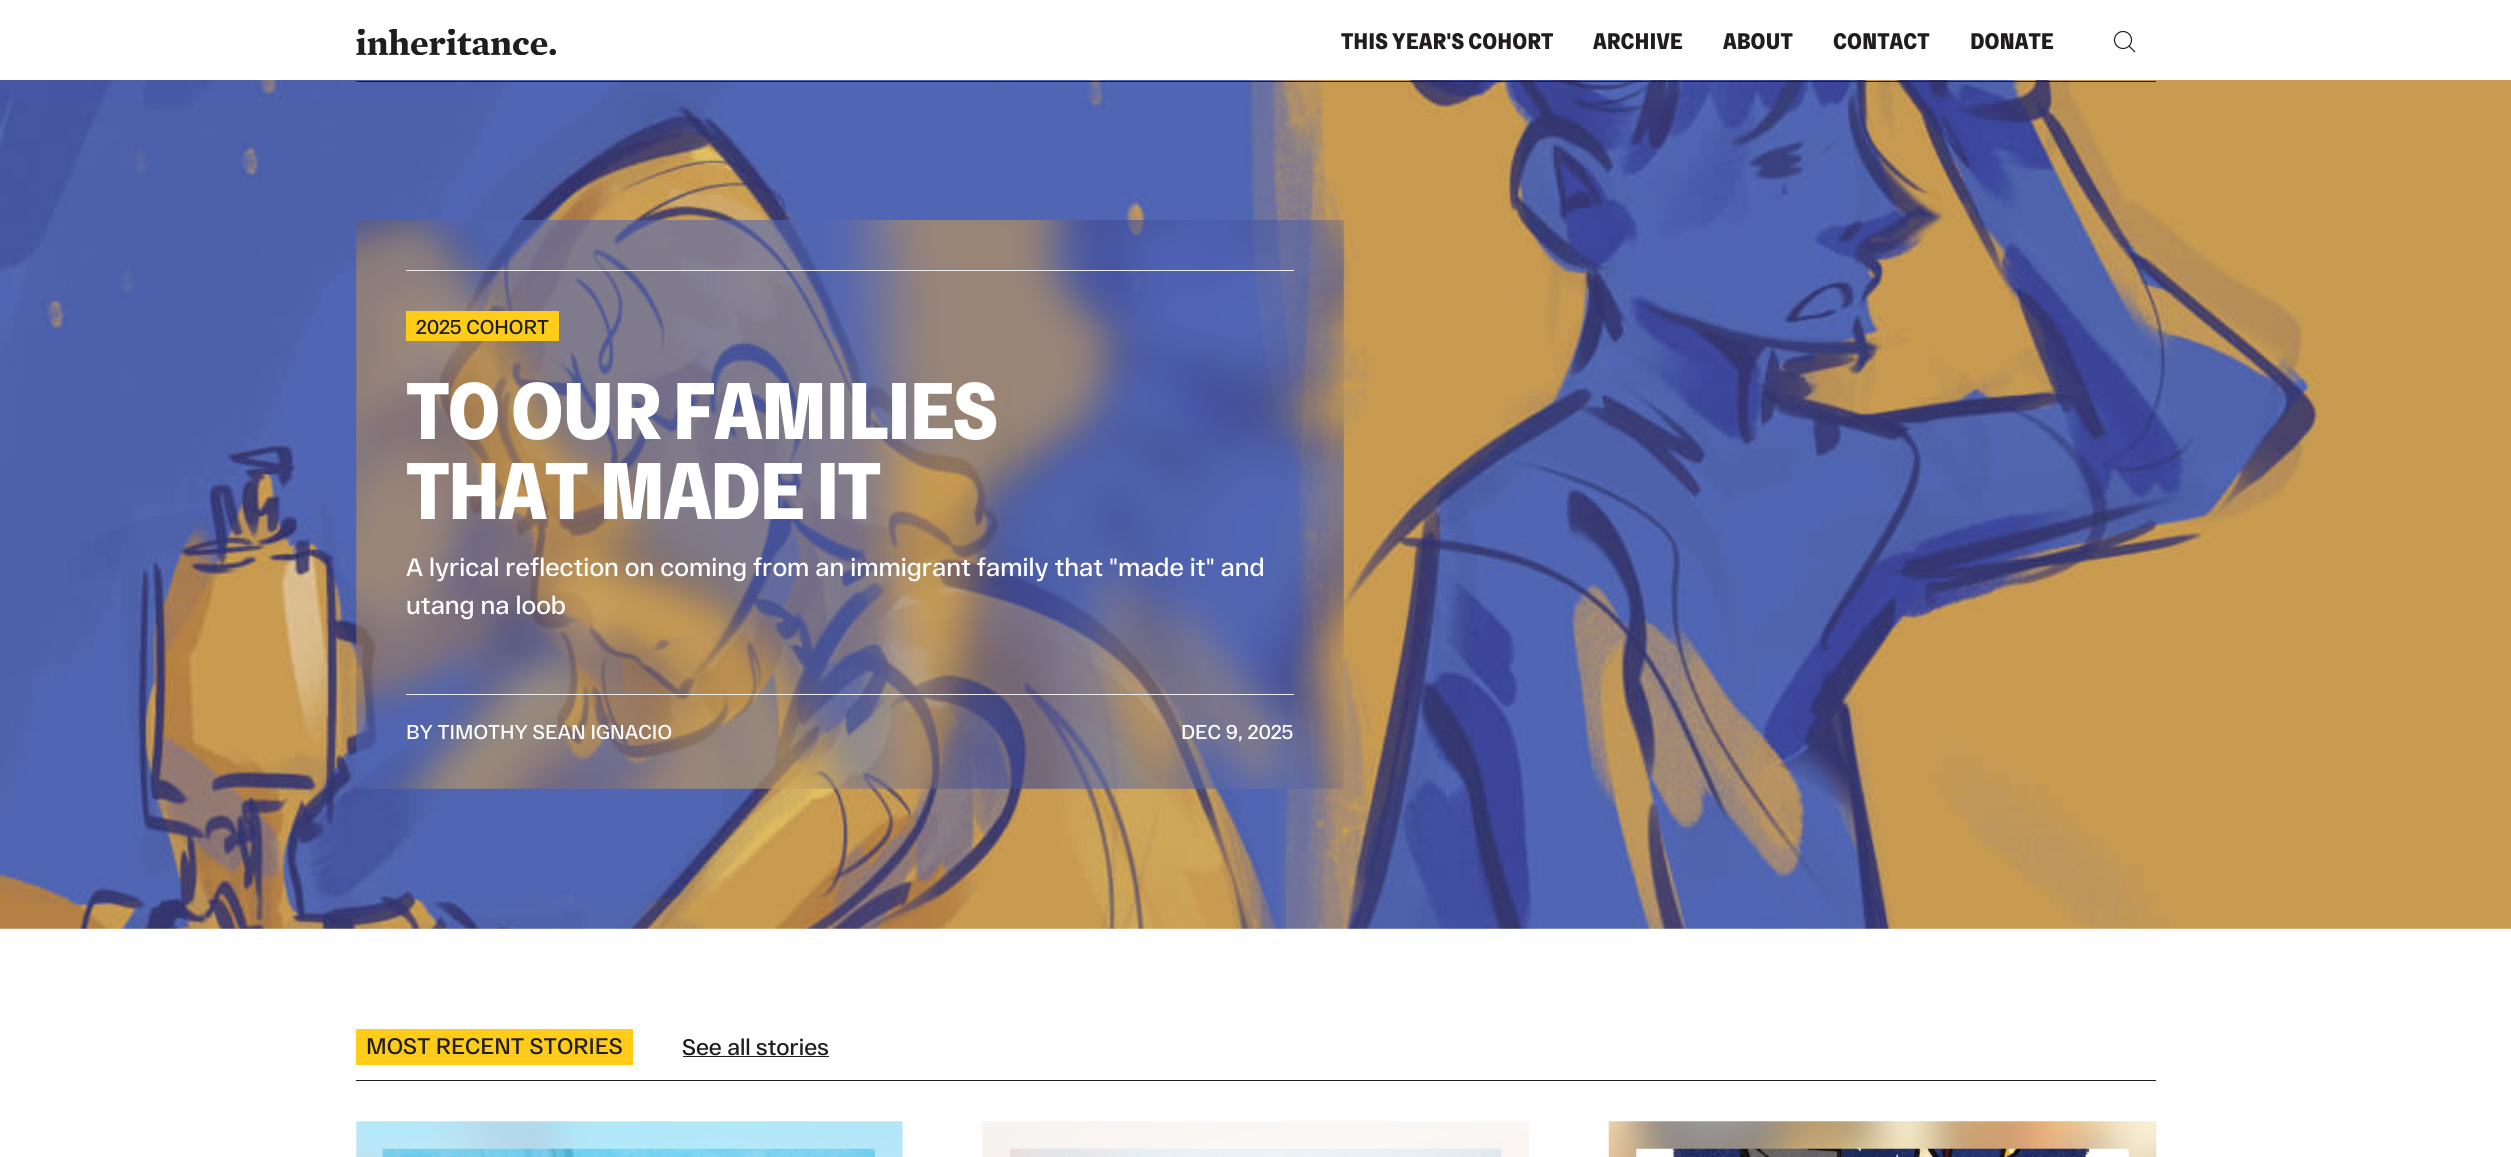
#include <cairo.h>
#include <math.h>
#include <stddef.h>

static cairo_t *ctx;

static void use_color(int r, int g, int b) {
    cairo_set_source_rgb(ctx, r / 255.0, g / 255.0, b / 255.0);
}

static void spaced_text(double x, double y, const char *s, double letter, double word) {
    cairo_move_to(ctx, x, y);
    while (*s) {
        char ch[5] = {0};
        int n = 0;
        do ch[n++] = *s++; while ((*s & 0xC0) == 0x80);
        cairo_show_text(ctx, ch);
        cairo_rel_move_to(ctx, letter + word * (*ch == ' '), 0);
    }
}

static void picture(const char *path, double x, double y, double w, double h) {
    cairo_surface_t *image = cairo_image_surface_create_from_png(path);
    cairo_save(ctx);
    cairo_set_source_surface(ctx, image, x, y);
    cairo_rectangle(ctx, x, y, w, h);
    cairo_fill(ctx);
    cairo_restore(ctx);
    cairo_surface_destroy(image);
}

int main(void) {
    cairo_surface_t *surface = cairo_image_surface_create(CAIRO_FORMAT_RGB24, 2511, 1157);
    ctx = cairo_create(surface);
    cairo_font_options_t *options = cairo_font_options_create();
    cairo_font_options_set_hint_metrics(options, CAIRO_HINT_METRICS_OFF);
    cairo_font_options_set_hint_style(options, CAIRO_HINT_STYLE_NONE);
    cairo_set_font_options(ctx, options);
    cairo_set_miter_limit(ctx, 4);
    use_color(255, 255, 255);
    cairo_paint(ctx);
    picture("img2.png", 0, 80, 2511, 849);
    use_color(31, 29, 30);
    cairo_rectangle(ctx, 356, 81, 1800, 1);
    cairo_fill(ctx);
    picture("img1.png", 356, 29, 200, 26);
    cairo_select_font_face(ctx, "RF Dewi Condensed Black", CAIRO_FONT_SLANT_NORMAL, CAIRO_FONT_WEIGHT_NORMAL);
    cairo_set_font_size(ctx, 22.5);
    cairo_move_to(ctx, 1341, 49);
    cairo_show_text(ctx, "THIS YEAR'S COHORT");
    cairo_move_to(ctx, 1593, 49);
    cairo_show_text(ctx, "ARCHIVE");
    cairo_move_to(ctx, 1723, 49);
    cairo_show_text(ctx, "ABOUT");
    cairo_move_to(ctx, 1833, 49);
    cairo_show_text(ctx, "CONTACT");
    cairo_move_to(ctx, 1970, 49);
    cairo_show_text(ctx, "DONATE");
    cairo_new_path(ctx);
    cairo_arc(ctx, 2123, 40, 8.5, 0, 2 * M_PI);
    cairo_set_line_width(ctx, 1.2);
    cairo_stroke(ctx);
    cairo_new_path(ctx);
    cairo_move_to(ctx, 2129, 46);
    cairo_line_to(ctx, 2135, 52);
    cairo_stroke(ctx);
    picture("img3.png", 356, 220, 988, 569);
    use_color(235, 235, 235);
    cairo_rectangle(ctx, 406, 270, 888, 1);
    cairo_fill(ctx);
    use_color(255, 205, 25);
    cairo_rectangle(ctx, 406, 311, 153, 30);
    cairo_fill(ctx);
    cairo_select_font_face(ctx, "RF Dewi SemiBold", CAIRO_FONT_SLANT_NORMAL, CAIRO_FONT_WEIGHT_NORMAL);
    cairo_set_font_size(ctx, 20);
    use_color(31, 29, 30);
    cairo_move_to(ctx, 416, 334);
    cairo_show_text(ctx, "2025 COHORT");
    cairo_select_font_face(ctx, "RF Dewi Condensed Black", CAIRO_FONT_SLANT_NORMAL, CAIRO_FONT_WEIGHT_NORMAL);
    cairo_set_font_size(ctx, 80);
    use_color(255, 255, 255);
    spaced_text(406, 439, "TO OUR FAMILIES", -2.4, 0);
    spaced_text(406, 519, "THAT MADE IT", -2.4, 0);
    cairo_select_font_face(ctx, "RF Dewi SemiBold", CAIRO_FONT_SLANT_NORMAL, CAIRO_FONT_WEIGHT_NORMAL);
    cairo_set_font_size(ctx, 25);
    cairo_move_to(ctx, 406, 576);
    cairo_show_text(ctx, "A lyrical reflection on coming from an immigrant family that \"made it\" and");
    cairo_move_to(ctx, 406, 614);
    cairo_show_text(ctx, "utang na loob");
    use_color(235, 235, 235);
    cairo_rectangle(ctx, 406, 694, 888, 1);
    cairo_fill(ctx);
    cairo_set_font_size(ctx, 20);
    use_color(255, 255, 255);
    cairo_move_to(ctx, 406, 739);
    cairo_show_text(ctx, "BY TIMOTHY SEAN IGNACIO");
    cairo_move_to(ctx, 1181, 739);
    cairo_show_text(ctx, "DEC 9, 2025");
    use_color(31, 29, 30);
    cairo_rectangle(ctx, 356, 1080, 1800, 1);
    cairo_fill(ctx);
    use_color(255, 205, 25);
    cairo_rectangle(ctx, 356, 1029, 277, 36);
    cairo_fill(ctx);
    cairo_set_font_size(ctx, 22.5);
    use_color(31, 29, 30);
    cairo_move_to(ctx, 366, 1054);
    cairo_show_text(ctx, "MOST RECENT STORIES");
    cairo_move_to(ctx, 682, 1055);
    cairo_show_text(ctx, "See all stories");
    cairo_rectangle(ctx, 683, 1056, 146, 1);
    cairo_fill(ctx);
    picture("img4.png", 356, 1121, 547, 36);
    picture("img5.png", 382, 1148, 493, 9);
    picture("img6.png", 982, 1121, 547, 36);
    picture("img7.png", 1010, 1148, 492, 9);
    picture("img8.png", 1608, 1121, 549, 36);
    picture("img9.png", 1636, 1148, 493, 9);
    cairo_surface_write_to_png(surface, "result.png");
    cairo_font_options_destroy(options);
    cairo_destroy(ctx);
    cairo_surface_destroy(surface);
    return 0;
}
